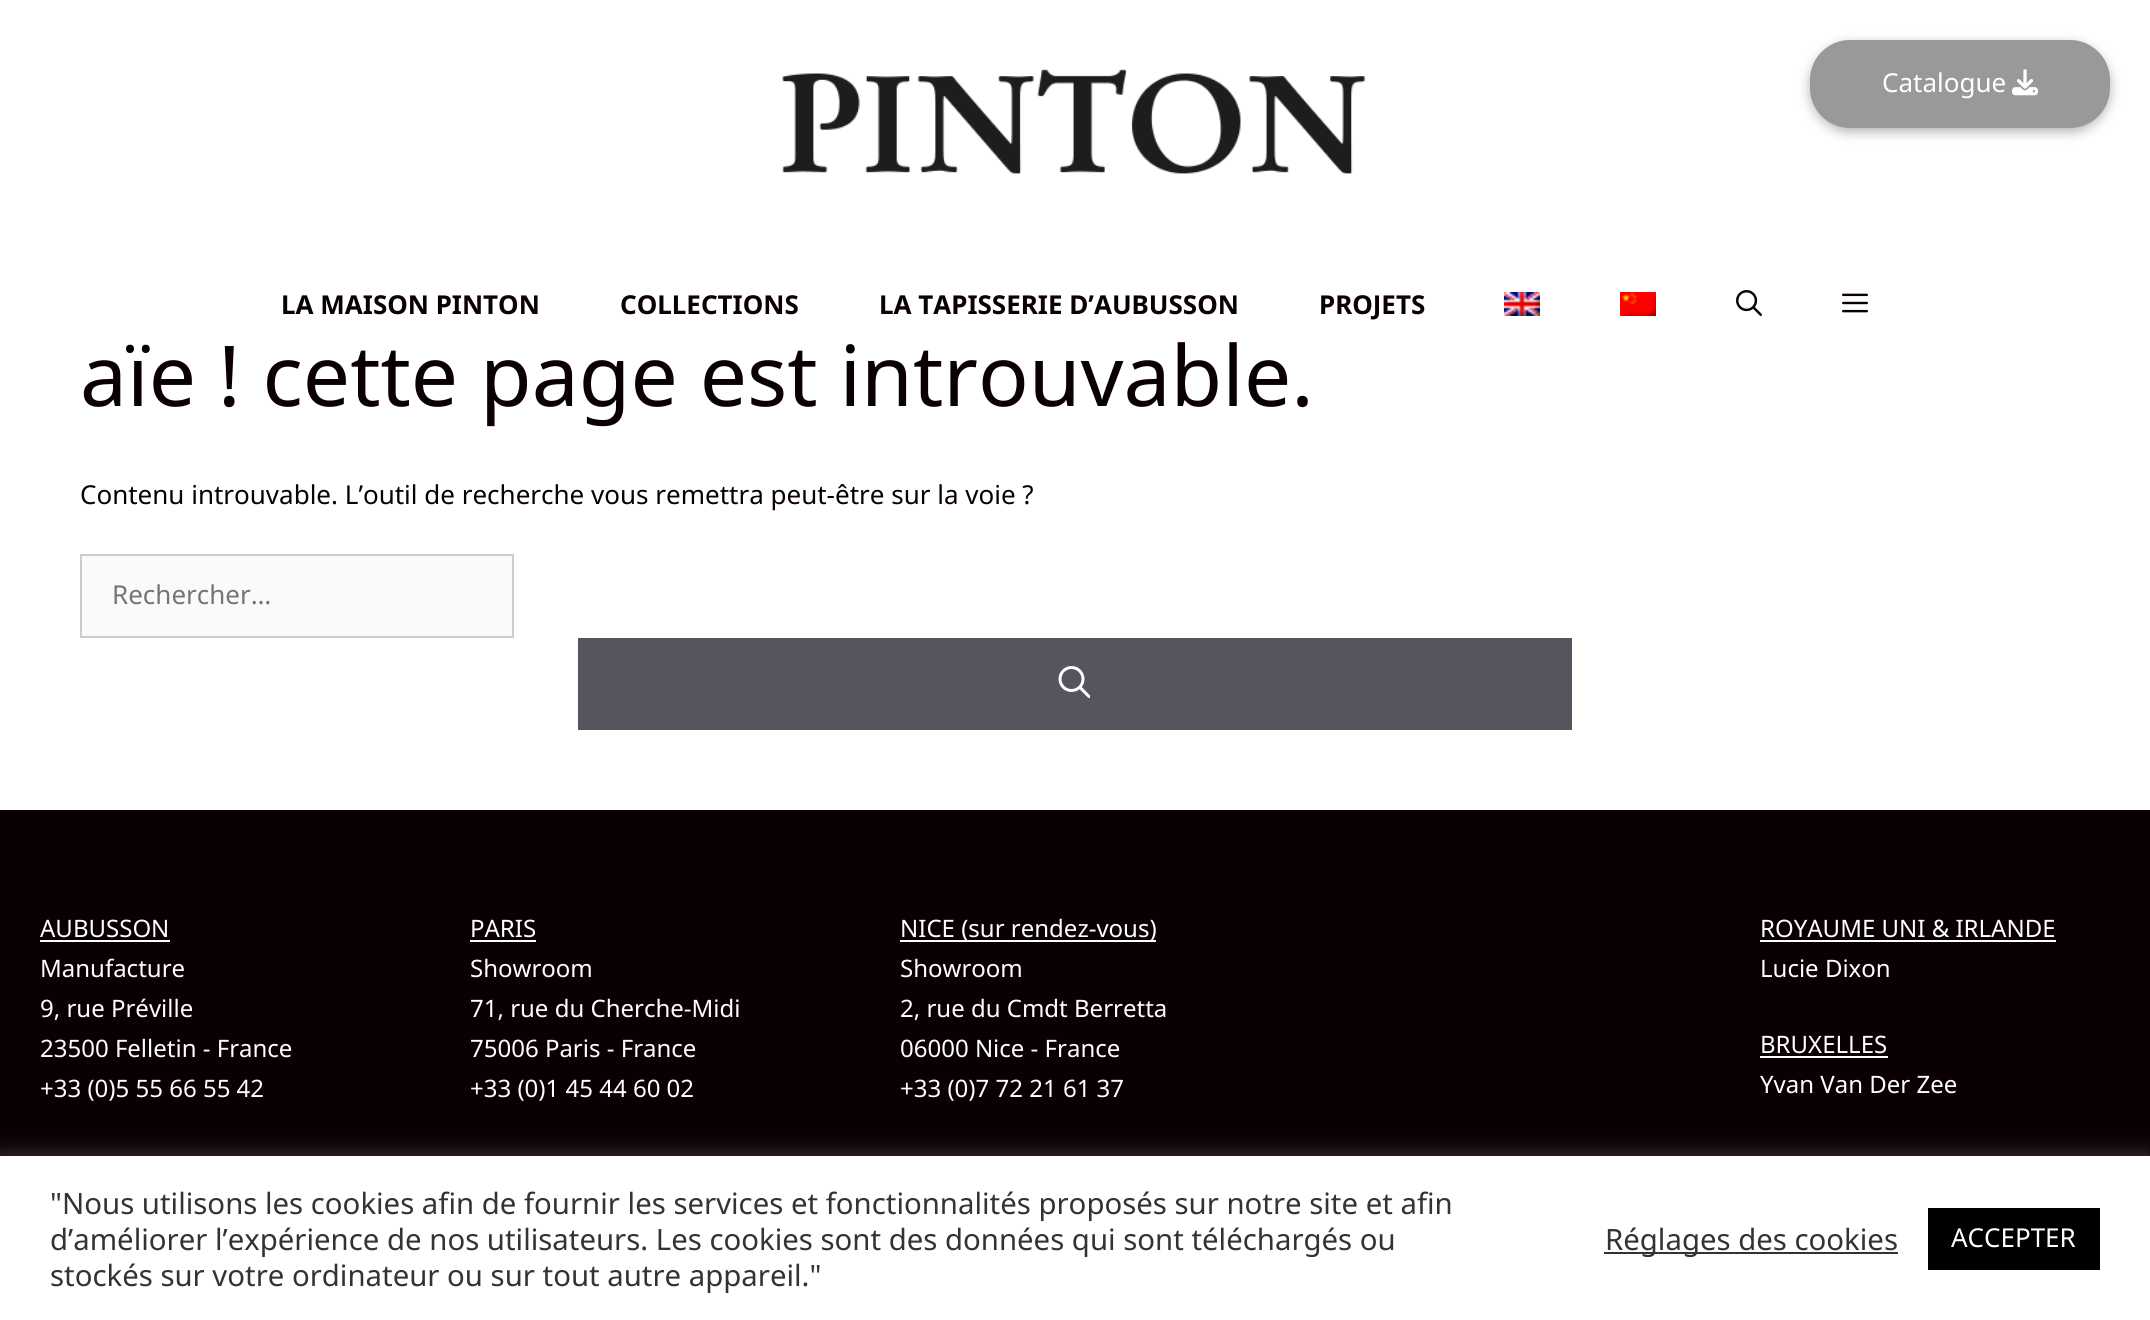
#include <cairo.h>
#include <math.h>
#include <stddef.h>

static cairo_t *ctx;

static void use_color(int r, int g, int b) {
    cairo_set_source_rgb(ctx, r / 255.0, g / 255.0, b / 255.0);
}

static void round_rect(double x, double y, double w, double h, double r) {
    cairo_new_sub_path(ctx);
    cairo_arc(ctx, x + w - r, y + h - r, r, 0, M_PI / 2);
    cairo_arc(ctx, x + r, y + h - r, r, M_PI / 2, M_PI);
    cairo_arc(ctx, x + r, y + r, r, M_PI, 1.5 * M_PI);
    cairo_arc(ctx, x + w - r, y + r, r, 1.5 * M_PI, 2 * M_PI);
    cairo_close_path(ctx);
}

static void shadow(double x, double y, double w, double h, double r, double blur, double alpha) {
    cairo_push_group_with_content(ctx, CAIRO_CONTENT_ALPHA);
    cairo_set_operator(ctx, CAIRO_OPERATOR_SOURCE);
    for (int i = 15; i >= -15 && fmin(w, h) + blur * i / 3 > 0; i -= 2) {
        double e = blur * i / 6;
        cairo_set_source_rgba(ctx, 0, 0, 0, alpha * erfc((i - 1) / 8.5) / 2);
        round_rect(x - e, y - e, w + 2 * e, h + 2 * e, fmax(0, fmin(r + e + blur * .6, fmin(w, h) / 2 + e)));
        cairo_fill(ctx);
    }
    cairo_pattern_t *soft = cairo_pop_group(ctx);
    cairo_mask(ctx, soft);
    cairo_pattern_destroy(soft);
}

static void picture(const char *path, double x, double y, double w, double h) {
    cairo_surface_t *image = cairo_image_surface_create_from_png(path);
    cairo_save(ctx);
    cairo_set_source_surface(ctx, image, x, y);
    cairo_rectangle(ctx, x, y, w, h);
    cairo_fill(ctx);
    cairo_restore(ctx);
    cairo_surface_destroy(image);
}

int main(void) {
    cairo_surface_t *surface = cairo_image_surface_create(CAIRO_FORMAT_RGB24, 2150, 1320);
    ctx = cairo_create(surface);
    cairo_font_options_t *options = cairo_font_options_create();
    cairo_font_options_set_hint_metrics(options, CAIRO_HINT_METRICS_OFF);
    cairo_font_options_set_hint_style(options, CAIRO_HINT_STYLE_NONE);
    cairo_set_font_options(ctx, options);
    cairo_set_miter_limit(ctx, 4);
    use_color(255, 255, 255);
    cairo_paint(ctx);
    picture("img1.png", 782, 69, 583, 105);
    use_color(0, 0, 0);
    shadow(1810, 44, 300, 88, 40, 6, 0.3);
    use_color(153, 153, 153);
    round_rect(1810, 40, 300, 88, 40);
    cairo_fill(ctx);
    cairo_select_font_face(ctx, "Noto Sans", CAIRO_FONT_SLANT_NORMAL, CAIRO_FONT_WEIGHT_NORMAL);
    cairo_set_font_size(ctx, 26);
    use_color(255, 255, 255);
    cairo_move_to(ctx, 1882, 92);
    cairo_show_text(ctx, "Catalogue");
    picture("img2.png", 2012, 69, 26, 27);
    cairo_select_font_face(ctx, "Noto Sans", CAIRO_FONT_SLANT_NORMAL, CAIRO_FONT_WEIGHT_BOLD);
    use_color(10, 0, 2);
    cairo_move_to(ctx, 281, 314);
    cairo_show_text(ctx, "LA MAISON PINTON");
    cairo_move_to(ctx, 620, 314);
    cairo_show_text(ctx, "COLLECTIONS");
    cairo_move_to(ctx, 879, 314);
    cairo_show_text(ctx, "LA TAPISSERIE D’AUBUSSON");
    cairo_move_to(ctx, 1319, 314);
    cairo_show_text(ctx, "PROJETS");
    picture("img3.png", 1504, 292, 36, 24);
    picture("img4.png", 1620, 292, 36, 24);
    picture("img5.png", 1736, 290, 26, 26);
    picture("img6.png", 1842, 293, 26, 20);
    cairo_select_font_face(ctx, "Noto Sans", CAIRO_FONT_SLANT_NORMAL, CAIRO_FONT_WEIGHT_NORMAL);
    cairo_set_font_size(ctx, 84);
    cairo_move_to(ctx, 80, 406);
    cairo_show_text(ctx, "aïe ! cette page est introuvable.");
    cairo_set_font_size(ctx, 26);
    cairo_move_to(ctx, 80, 504);
    cairo_show_text(ctx, "Contenu introuvable. L’outil de recherche vous remettra peut-être sur la voie ?");
    use_color(250, 250, 250);
    cairo_rectangle(ctx, 81, 555, 432, 82);
    cairo_fill_preserve(ctx);
    use_color(204, 204, 204);
    cairo_stroke(ctx);
    use_color(117, 117, 117);
    cairo_move_to(ctx, 112, 604);
    cairo_show_text(ctx, "Rechercher…");
    use_color(85, 85, 94);
    cairo_rectangle(ctx, 578, 638, 994, 92);
    cairo_fill(ctx);
    picture("img7.png", 1058, 666, 32, 32);
    use_color(10, 0, 2);
    cairo_rectangle(ctx, 0, 810, 2150, 346);
    cairo_fill(ctx);
    cairo_set_font_size(ctx, 24);
    use_color(255, 255, 255);
    cairo_move_to(ctx, 40, 937);
    cairo_show_text(ctx, "AUBUSSON");
    cairo_rectangle(ctx, 40, 940, 130, 2);
    cairo_fill(ctx);
    cairo_move_to(ctx, 40, 977);
    cairo_show_text(ctx, "Manufacture");
    cairo_move_to(ctx, 40, 1017);
    cairo_show_text(ctx, "9, rue Préville");
    cairo_move_to(ctx, 40, 1057);
    cairo_show_text(ctx, "23500 Felletin - France");
    cairo_move_to(ctx, 40, 1097);
    cairo_show_text(ctx, "+33 (0)5 55 66 55 42");
    cairo_move_to(ctx, 470, 937);
    cairo_show_text(ctx, "PARIS");
    cairo_rectangle(ctx, 470, 940, 66, 2);
    cairo_fill(ctx);
    cairo_move_to(ctx, 470, 977);
    cairo_show_text(ctx, "Showroom");
    cairo_move_to(ctx, 470, 1017);
    cairo_show_text(ctx, "71, rue du Cherche-Midi");
    cairo_move_to(ctx, 470, 1057);
    cairo_show_text(ctx, "75006 Paris - France");
    cairo_move_to(ctx, 470, 1097);
    cairo_show_text(ctx, "+33 (0)1 45 44 60 02");
    cairo_rectangle(ctx, 900, 940, 256, 2);
    cairo_fill(ctx);
    cairo_move_to(ctx, 900, 937);
    cairo_show_text(ctx, "NICE (sur rendez-vous)");
    cairo_move_to(ctx, 900, 977);
    cairo_show_text(ctx, "Showroom");
    cairo_move_to(ctx, 900, 1017);
    cairo_show_text(ctx, "2, rue du Cmdt Berretta");
    cairo_move_to(ctx, 900, 1057);
    cairo_show_text(ctx, "06000 Nice - France");
    cairo_move_to(ctx, 900, 1097);
    cairo_show_text(ctx, "+33 (0)7 72 21 61 37");
    cairo_move_to(ctx, 1760, 937);
    cairo_show_text(ctx, "ROYAUME UNI & IRLANDE");
    cairo_rectangle(ctx, 1760, 940, 296, 2);
    cairo_fill(ctx);
    cairo_move_to(ctx, 1760, 977);
    cairo_show_text(ctx, "Lucie Dixon");
    cairo_move_to(ctx, 1760, 1053);
    cairo_show_text(ctx, "BRUXELLES");
    cairo_rectangle(ctx, 1760, 1056, 128, 2);
    cairo_fill(ctx);
    cairo_move_to(ctx, 1760, 1093);
    cairo_show_text(ctx, "Yvan Van Der Zee");
    use_color(172, 171, 171);
    shadow(0, 1154, 2150, 164, 0, 10, 0.3);
    use_color(255, 255, 255);
    cairo_rectangle(ctx, 0, 1156, 2150, 164);
    cairo_fill(ctx);
    cairo_set_font_size(ctx, 29.35);
    use_color(51, 51, 51);
    cairo_move_to(ctx, 50, 1214);
    cairo_show_text(ctx, "\"Nous utilisons les cookies afin de fournir les services et fonctionnalités proposés sur notre site et afin");
    cairo_move_to(ctx, 50, 1250);
    cairo_show_text(ctx, "d’améliorer l’expérience de nos utilisateurs. Les cookies sont des données qui sont téléchargés ou");
    cairo_move_to(ctx, 50, 1286);
    cairo_show_text(ctx, "stockés sur votre ordinateur ou sur tout autre appareil.\"");
    cairo_rectangle(ctx, 1604, 1252, 294, 2);
    cairo_fill(ctx);
    cairo_move_to(ctx, 1605, 1250);
    cairo_show_text(ctx, "Réglages des cookies");
    use_color(0, 0, 0);
    cairo_rectangle(ctx, 1928, 1208, 172, 62);
    cairo_fill(ctx);
    cairo_set_font_size(ctx, 26);
    use_color(255, 255, 255);
    cairo_move_to(ctx, 1951, 1247);
    cairo_show_text(ctx, "ACCEPTER");
    cairo_surface_write_to_png(surface, "result.png");
    cairo_font_options_destroy(options);
    cairo_destroy(ctx);
    cairo_surface_destroy(surface);
    return 0;
}
